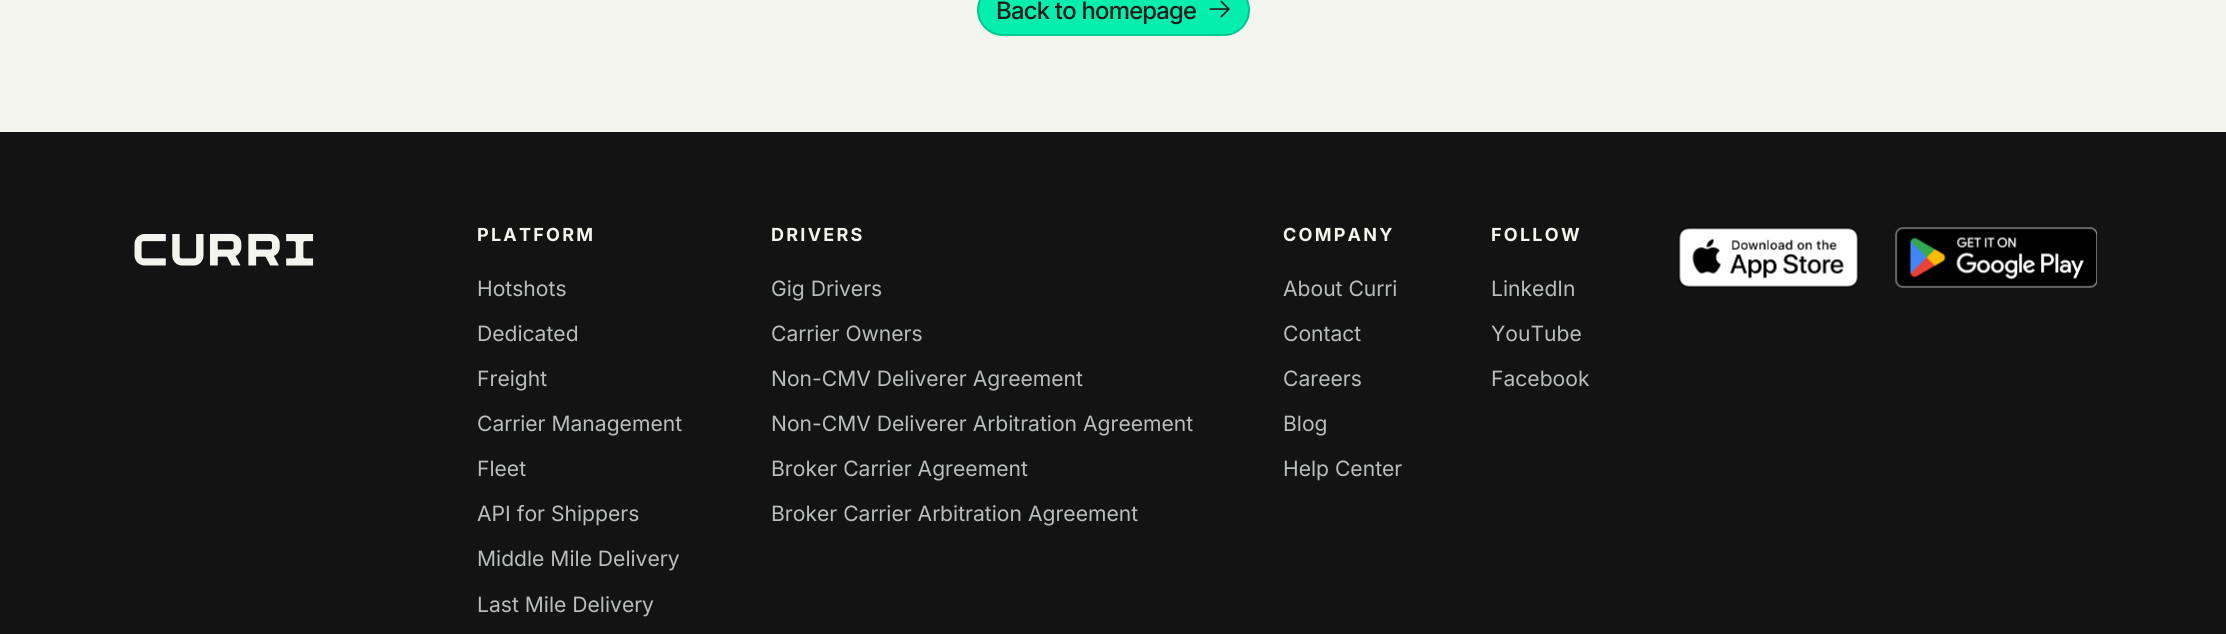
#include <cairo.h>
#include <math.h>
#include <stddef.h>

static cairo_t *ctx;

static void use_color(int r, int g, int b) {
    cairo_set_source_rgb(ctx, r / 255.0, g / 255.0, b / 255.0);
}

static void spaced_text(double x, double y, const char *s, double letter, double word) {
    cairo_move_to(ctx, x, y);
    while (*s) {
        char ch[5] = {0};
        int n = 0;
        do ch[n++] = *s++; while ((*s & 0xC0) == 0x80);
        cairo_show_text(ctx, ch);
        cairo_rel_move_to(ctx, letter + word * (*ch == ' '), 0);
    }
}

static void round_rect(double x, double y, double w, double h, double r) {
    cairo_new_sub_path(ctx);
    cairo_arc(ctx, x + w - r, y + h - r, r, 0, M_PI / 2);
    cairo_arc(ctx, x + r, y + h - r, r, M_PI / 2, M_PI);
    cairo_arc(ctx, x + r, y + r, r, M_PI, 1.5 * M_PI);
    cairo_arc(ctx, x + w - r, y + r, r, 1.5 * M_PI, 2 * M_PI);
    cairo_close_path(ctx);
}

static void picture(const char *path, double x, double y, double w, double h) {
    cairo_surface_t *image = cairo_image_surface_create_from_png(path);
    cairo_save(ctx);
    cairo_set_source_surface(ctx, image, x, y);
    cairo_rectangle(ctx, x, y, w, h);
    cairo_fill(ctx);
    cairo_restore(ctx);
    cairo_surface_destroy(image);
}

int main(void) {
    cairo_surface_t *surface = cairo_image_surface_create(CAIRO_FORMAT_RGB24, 2226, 634);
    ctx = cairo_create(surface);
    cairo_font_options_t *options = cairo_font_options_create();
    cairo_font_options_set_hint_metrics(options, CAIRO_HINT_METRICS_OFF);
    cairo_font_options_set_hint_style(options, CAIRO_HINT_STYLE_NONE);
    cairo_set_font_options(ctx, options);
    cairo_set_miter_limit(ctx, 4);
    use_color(244, 244, 239);
    cairo_paint(ctx);
    use_color(4, 238, 173);
    round_rect(978, -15, 271, 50, 25);
    cairo_fill_preserve(ctx);
    use_color(3, 198, 144);
    cairo_stroke(ctx);
    cairo_select_font_face(ctx, "Inter Medium", CAIRO_FONT_SLANT_NORMAL, CAIRO_FONT_WEIGHT_NORMAL);
    cairo_set_font_size(ctx, 24);
    use_color(28, 28, 28);
    spaced_text(996, 19, "Back to homepage", -0.75, 0);
    picture("img1.png", 1209, 0, 21, 18);
    use_color(19, 19, 19);
    cairo_rectangle(ctx, 0, 132, 2226, 502);
    cairo_fill(ctx);
    picture("img2.png", 134, 233, 180, 33);
    cairo_select_font_face(ctx, "Inter", CAIRO_FONT_SLANT_NORMAL, CAIRO_FONT_WEIGHT_BOLD);
    cairo_set_font_size(ctx, 18);
    use_color(244, 244, 239);
    spaced_text(477, 241, "PLATFORM", 2.25, 0);
    cairo_select_font_face(ctx, "Inter", CAIRO_FONT_SLANT_NORMAL, CAIRO_FONT_WEIGHT_NORMAL);
    cairo_set_font_size(ctx, 21.1);
    use_color(185, 189, 188);
    cairo_move_to(ctx, 477, 296);
    cairo_show_text(ctx, "Hotshots");
    cairo_move_to(ctx, 477, 341);
    cairo_show_text(ctx, "Dedicated");
    cairo_move_to(ctx, 477, 386);
    cairo_show_text(ctx, "Freight");
    cairo_move_to(ctx, 477, 431);
    cairo_show_text(ctx, "Carrier Management");
    cairo_move_to(ctx, 477, 476);
    cairo_show_text(ctx, "Fleet");
    cairo_move_to(ctx, 477, 521);
    cairo_show_text(ctx, "API for Shippers");
    cairo_move_to(ctx, 477, 566);
    cairo_show_text(ctx, "Middle Mile Delivery");
    cairo_move_to(ctx, 477, 612);
    cairo_show_text(ctx, "Last Mile Delivery");
    cairo_select_font_face(ctx, "Inter", CAIRO_FONT_SLANT_NORMAL, CAIRO_FONT_WEIGHT_BOLD);
    cairo_set_font_size(ctx, 18);
    use_color(244, 244, 239);
    spaced_text(771, 241, "DRIVERS", 2.25, 0);
    cairo_select_font_face(ctx, "Inter", CAIRO_FONT_SLANT_NORMAL, CAIRO_FONT_WEIGHT_NORMAL);
    cairo_set_font_size(ctx, 21.1);
    use_color(185, 189, 188);
    cairo_move_to(ctx, 771, 296);
    cairo_show_text(ctx, "Gig Drivers");
    cairo_move_to(ctx, 771, 341);
    cairo_show_text(ctx, "Carrier Owners");
    cairo_move_to(ctx, 771, 386);
    cairo_show_text(ctx, "Non-CMV Deliverer Agreement");
    cairo_move_to(ctx, 771, 431);
    cairo_show_text(ctx, "Non-CMV Deliverer Arbitration Agreement");
    cairo_move_to(ctx, 771, 476);
    cairo_show_text(ctx, "Broker Carrier Agreement");
    cairo_move_to(ctx, 771, 521);
    cairo_show_text(ctx, "Broker Carrier Arbitration Agreement");
    cairo_select_font_face(ctx, "Inter", CAIRO_FONT_SLANT_NORMAL, CAIRO_FONT_WEIGHT_BOLD);
    cairo_set_font_size(ctx, 18);
    use_color(244, 244, 239);
    spaced_text(1283, 241, "COMPANY", 2.25, 0);
    cairo_select_font_face(ctx, "Inter", CAIRO_FONT_SLANT_NORMAL, CAIRO_FONT_WEIGHT_NORMAL);
    cairo_set_font_size(ctx, 21.1);
    use_color(185, 189, 188);
    cairo_move_to(ctx, 1283, 296);
    cairo_show_text(ctx, "About Curri");
    cairo_move_to(ctx, 1283, 341);
    cairo_show_text(ctx, "Contact");
    cairo_move_to(ctx, 1283, 386);
    cairo_show_text(ctx, "Careers");
    cairo_move_to(ctx, 1283, 431);
    cairo_show_text(ctx, "Blog");
    cairo_move_to(ctx, 1283, 476);
    cairo_show_text(ctx, "Help Center");
    cairo_select_font_face(ctx, "Inter", CAIRO_FONT_SLANT_NORMAL, CAIRO_FONT_WEIGHT_BOLD);
    cairo_set_font_size(ctx, 18);
    use_color(244, 244, 239);
    spaced_text(1491, 241, "FOLLOW", 2.25, 0);
    cairo_select_font_face(ctx, "Inter", CAIRO_FONT_SLANT_NORMAL, CAIRO_FONT_WEIGHT_NORMAL);
    cairo_set_font_size(ctx, 21.1);
    use_color(185, 189, 188);
    cairo_move_to(ctx, 1491, 296);
    cairo_show_text(ctx, "LinkedIn");
    cairo_move_to(ctx, 1491, 341);
    cairo_show_text(ctx, "YouTube");
    cairo_move_to(ctx, 1491, 386);
    cairo_show_text(ctx, "Facebook");
    picture("img3.png", 1678, 227, 181, 61);
    picture("img4.png", 1895, 227, 202, 61);
    cairo_surface_write_to_png(surface, "result.png");
    cairo_font_options_destroy(options);
    cairo_destroy(ctx);
    cairo_surface_destroy(surface);
    return 0;
}
